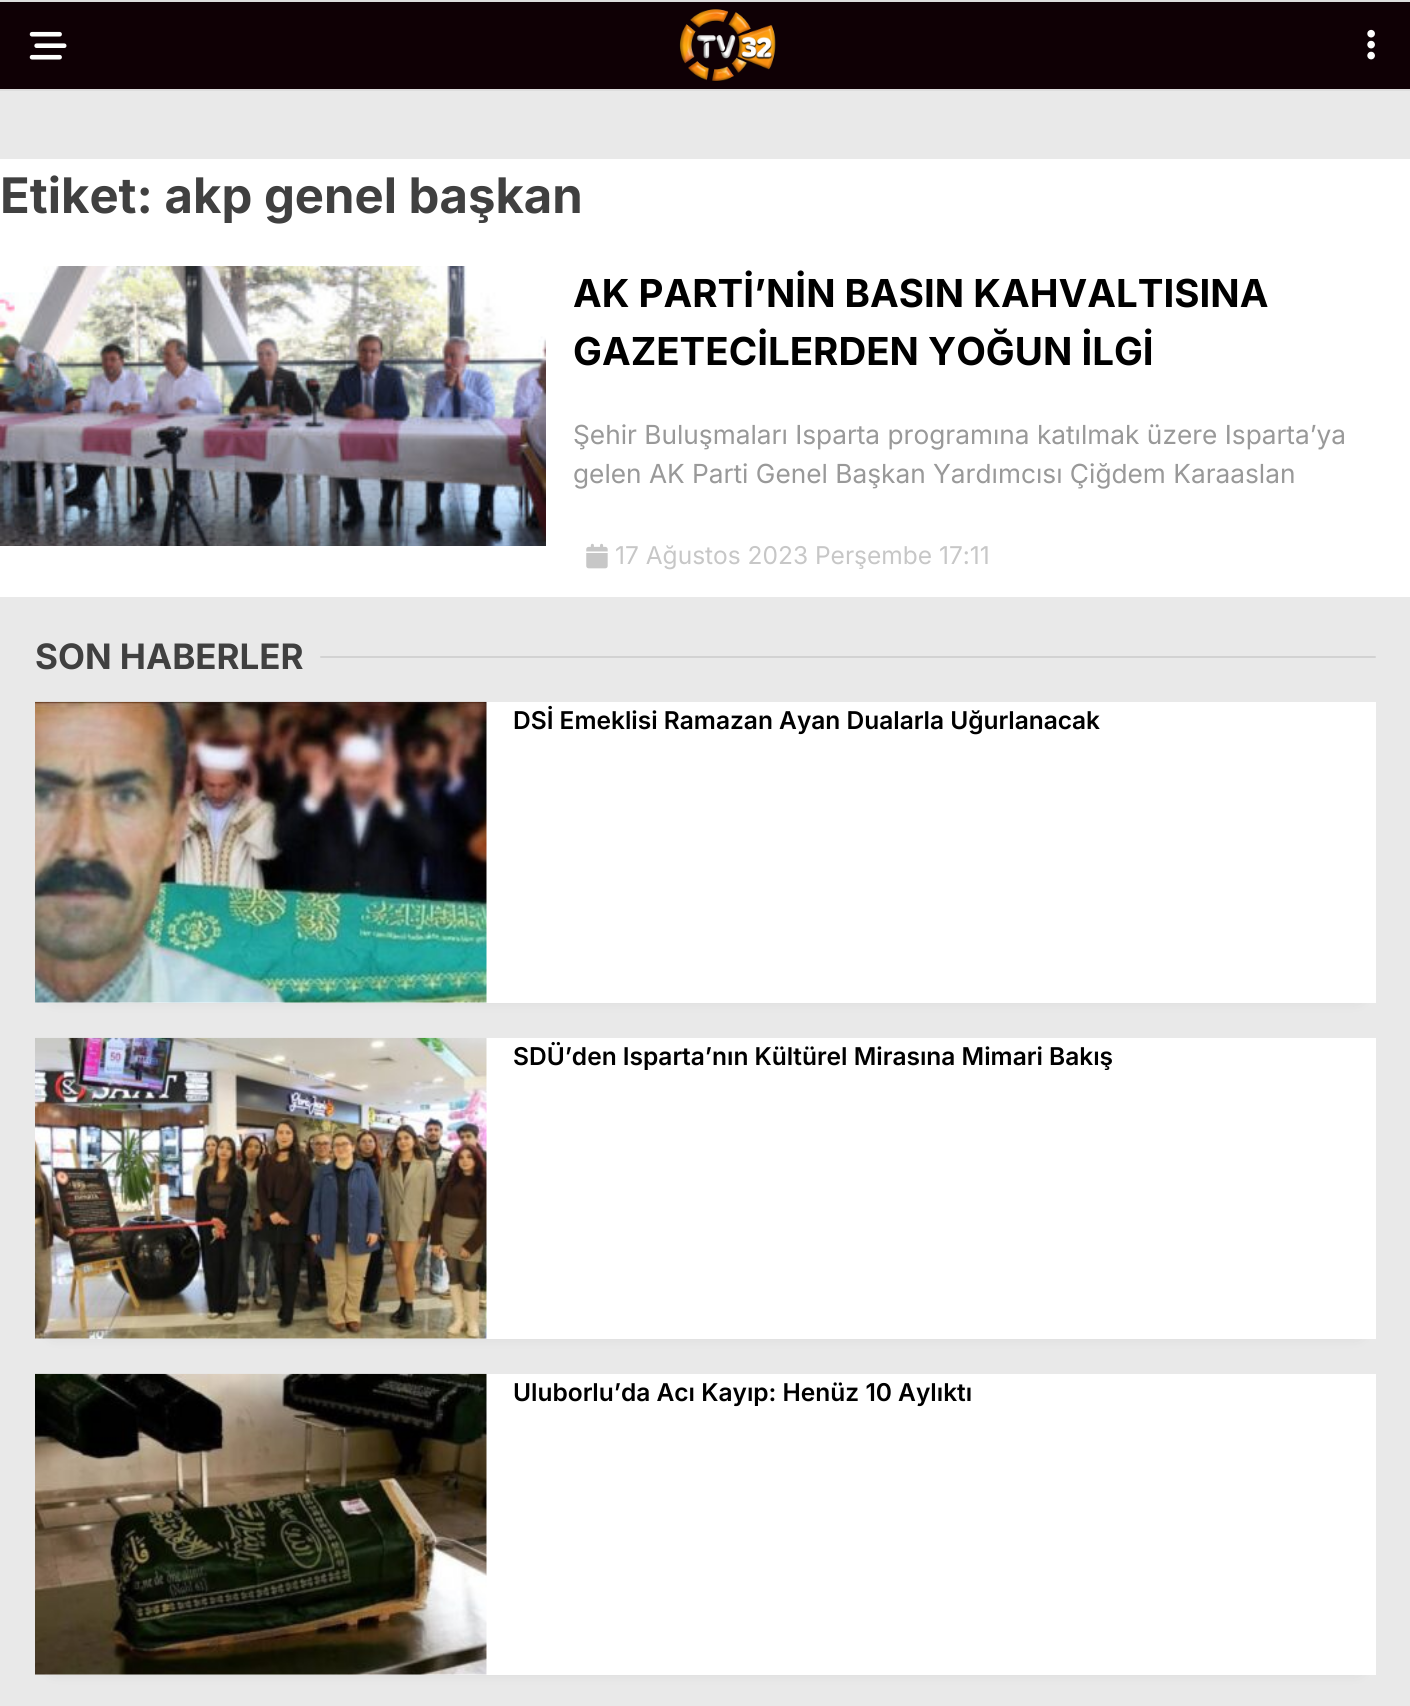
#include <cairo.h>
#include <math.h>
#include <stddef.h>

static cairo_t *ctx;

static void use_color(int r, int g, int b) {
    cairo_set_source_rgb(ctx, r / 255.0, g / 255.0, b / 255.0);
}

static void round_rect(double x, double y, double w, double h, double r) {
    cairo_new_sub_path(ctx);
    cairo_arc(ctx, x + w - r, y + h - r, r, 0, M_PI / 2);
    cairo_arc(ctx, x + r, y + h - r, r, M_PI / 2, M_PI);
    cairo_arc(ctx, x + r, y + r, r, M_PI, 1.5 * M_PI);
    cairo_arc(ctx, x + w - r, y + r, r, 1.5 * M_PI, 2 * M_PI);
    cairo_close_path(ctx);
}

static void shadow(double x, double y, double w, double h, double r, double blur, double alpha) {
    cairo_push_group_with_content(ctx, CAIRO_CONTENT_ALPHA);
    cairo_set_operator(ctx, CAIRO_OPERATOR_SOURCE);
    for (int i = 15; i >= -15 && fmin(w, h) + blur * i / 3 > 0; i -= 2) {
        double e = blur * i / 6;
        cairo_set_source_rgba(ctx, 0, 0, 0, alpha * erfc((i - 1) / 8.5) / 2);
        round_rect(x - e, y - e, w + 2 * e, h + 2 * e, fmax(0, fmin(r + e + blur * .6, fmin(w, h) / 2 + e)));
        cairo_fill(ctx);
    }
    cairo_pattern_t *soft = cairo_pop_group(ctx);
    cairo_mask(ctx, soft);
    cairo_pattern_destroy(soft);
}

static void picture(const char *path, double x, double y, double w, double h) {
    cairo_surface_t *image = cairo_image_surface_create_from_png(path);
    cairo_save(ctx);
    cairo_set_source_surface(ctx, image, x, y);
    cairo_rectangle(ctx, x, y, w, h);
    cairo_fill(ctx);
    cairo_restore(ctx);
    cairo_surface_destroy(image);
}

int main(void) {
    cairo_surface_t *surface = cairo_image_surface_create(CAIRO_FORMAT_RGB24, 1410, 1706);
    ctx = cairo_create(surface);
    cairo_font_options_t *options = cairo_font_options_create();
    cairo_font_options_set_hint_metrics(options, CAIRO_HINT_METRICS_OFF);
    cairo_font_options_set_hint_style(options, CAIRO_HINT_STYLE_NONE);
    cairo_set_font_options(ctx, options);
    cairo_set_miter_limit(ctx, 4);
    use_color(233, 233, 233);
    cairo_paint(ctx);
    use_color(221, 221, 221);
    cairo_rectangle(ctx, 0, 0, 1410, 2);
    cairo_fill(ctx);
    use_color(15, 0, 5);
    cairo_rectangle(ctx, 0, 2, 1410, 87);
    cairo_fill(ctx);
    use_color(221, 221, 221);
    cairo_rectangle(ctx, 0, 89, 1410, 2);
    cairo_fill(ctx);
    picture("img1.png", 29, 31, 38, 29);
    picture("img2.png", 679, 9, 97, 73);
    picture("img3.png", 1367, 29, 8, 31);
    use_color(255, 255, 255);
    cairo_rectangle(ctx, 0, 159, 1410, 438);
    cairo_fill(ctx);
    cairo_select_font_face(ctx, "Inter", CAIRO_FONT_SLANT_NORMAL, CAIRO_FONT_WEIGHT_BOLD);
    cairo_set_font_size(ctx, 49);
    use_color(64, 64, 64);
    cairo_move_to(ctx, 0, 213);
    cairo_show_text(ctx, "Etiket: akp genel başkan");
    picture("img4.png", 0, 266, 546, 280);
    cairo_set_font_size(ctx, 38.5);
    use_color(0, 0, 0);
    cairo_move_to(ctx, 573, 307);
    cairo_show_text(ctx, "AK PARTİ’NİN BASIN KAHVALTISINA");
    cairo_move_to(ctx, 573, 365);
    cairo_show_text(ctx, "GAZETECİLERDEN YOĞUN İLGİ");
    cairo_select_font_face(ctx, "Inter", CAIRO_FONT_SLANT_NORMAL, CAIRO_FONT_WEIGHT_NORMAL);
    cairo_set_font_size(ctx, 26.25);
    use_color(153, 153, 153);
    cairo_move_to(ctx, 573, 444);
    cairo_show_text(ctx, "Şehir Buluşmaları Isparta programına katılmak üzere Isparta’ya");
    cairo_move_to(ctx, 573, 483);
    cairo_show_text(ctx, "gelen AK Parti Genel Başkan Yardımcısı Çiğdem Karaaslan");
    picture("img5.png", 586, 543, 22, 26);
    cairo_set_font_size(ctx, 24.5);
    use_color(199, 199, 199);
    cairo_move_to(ctx, 615, 564);
    cairo_show_text(ctx, "17 Ağustos 2023 Perşembe 17:11");
    cairo_select_font_face(ctx, "Inter", CAIRO_FONT_SLANT_NORMAL, CAIRO_FONT_WEIGHT_BOLD);
    cairo_set_font_size(ctx, 35);
    use_color(64, 64, 64);
    cairo_move_to(ctx, 35, 669);
    cairo_show_text(ctx, "SON HABERLER");
    use_color(210, 210, 210);
    round_rect(320, 656, 1056, 2, 1);
    cairo_fill(ctx);
    use_color(0, 0, 0);
    shadow(53, 730, 1305, 266, 0, 9, 0.16);
    use_color(255, 255, 255);
    cairo_rectangle(ctx, 35, 702, 1341, 301);
    cairo_fill(ctx);
    picture("img6.png", 35, 701, 452, 302);
    cairo_select_font_face(ctx, "Inter SemiBold", CAIRO_FONT_SLANT_NORMAL, CAIRO_FONT_WEIGHT_NORMAL);
    cairo_set_font_size(ctx, 24.5);
    use_color(0, 0, 0);
    cairo_move_to(ctx, 513, 729);
    cairo_show_text(ctx, "DSİ Emeklisi Ramazan Ayan Dualarla Uğurlanacak");
    use_color(0, 0, 0);
    shadow(53, 1066, 1305, 266, 0, 9, 0.16);
    use_color(255, 255, 255);
    cairo_rectangle(ctx, 35, 1038, 1341, 301);
    cairo_fill(ctx);
    picture("img7.png", 35, 1037, 452, 302);
    use_color(0, 0, 0);
    cairo_move_to(ctx, 513, 1065);
    cairo_show_text(ctx, "SDÜ’den Isparta’nın Kültürel Mirasına Mimari Bakış");
    use_color(0, 0, 0);
    shadow(53, 1402, 1305, 266, 0, 9, 0.16);
    use_color(255, 255, 255);
    cairo_rectangle(ctx, 35, 1374, 1341, 301);
    cairo_fill(ctx);
    picture("img8.png", 35, 1373, 452, 302);
    use_color(0, 0, 0);
    cairo_move_to(ctx, 513, 1401);
    cairo_show_text(ctx, "Uluborlu’da Acı Kayıp: Henüz 10 Aylıktı");
    cairo_surface_write_to_png(surface, "result.png");
    cairo_font_options_destroy(options);
    cairo_destroy(ctx);
    cairo_surface_destroy(surface);
    return 0;
}
